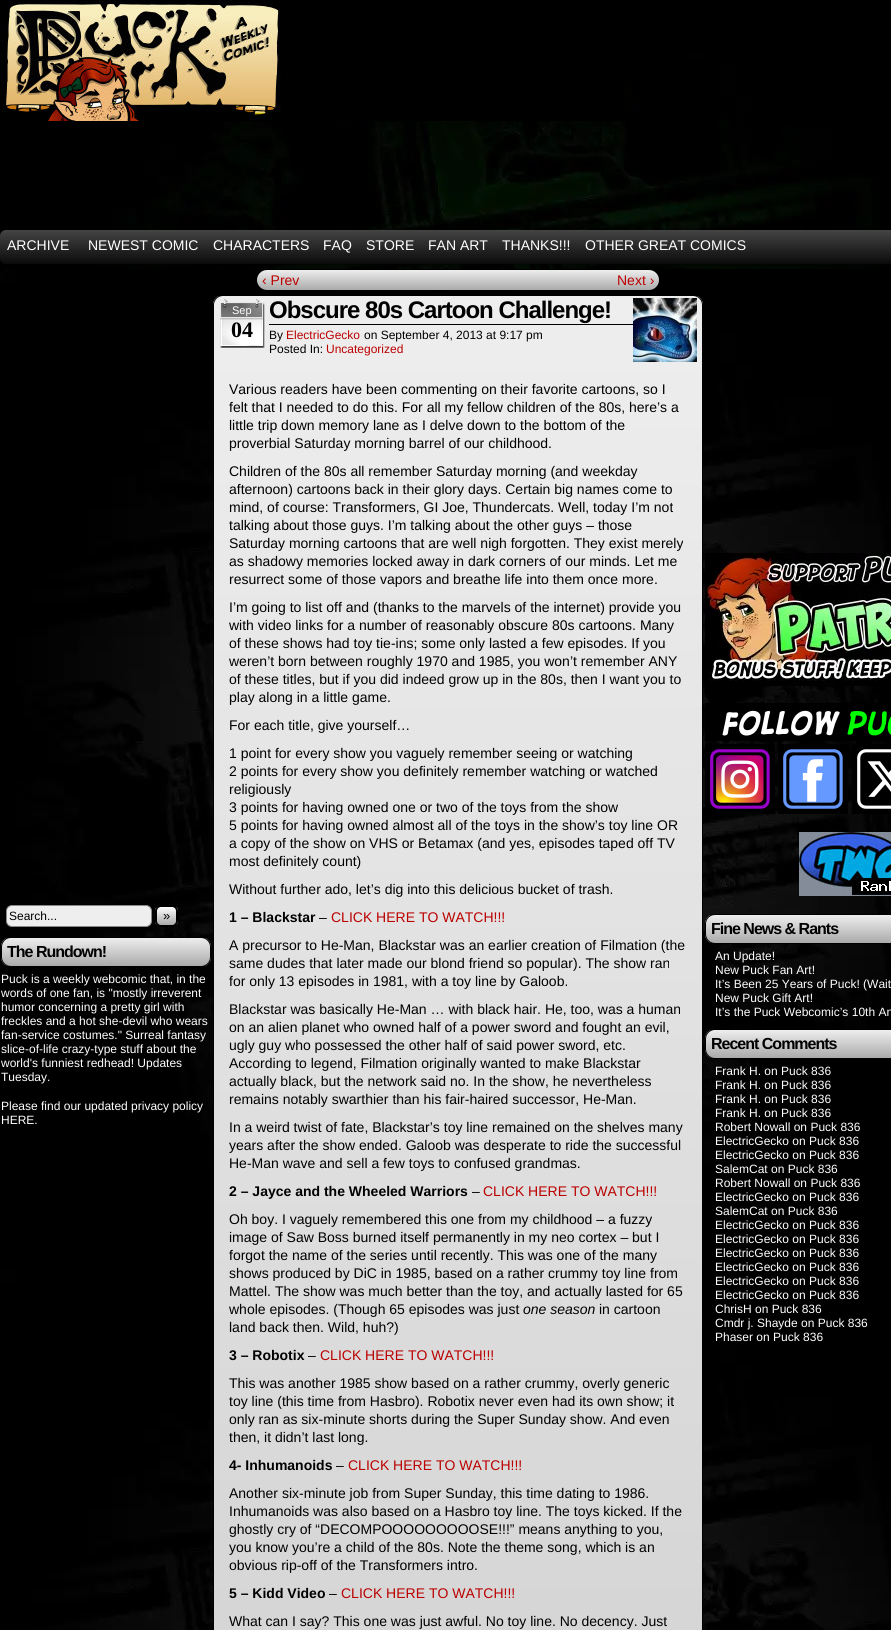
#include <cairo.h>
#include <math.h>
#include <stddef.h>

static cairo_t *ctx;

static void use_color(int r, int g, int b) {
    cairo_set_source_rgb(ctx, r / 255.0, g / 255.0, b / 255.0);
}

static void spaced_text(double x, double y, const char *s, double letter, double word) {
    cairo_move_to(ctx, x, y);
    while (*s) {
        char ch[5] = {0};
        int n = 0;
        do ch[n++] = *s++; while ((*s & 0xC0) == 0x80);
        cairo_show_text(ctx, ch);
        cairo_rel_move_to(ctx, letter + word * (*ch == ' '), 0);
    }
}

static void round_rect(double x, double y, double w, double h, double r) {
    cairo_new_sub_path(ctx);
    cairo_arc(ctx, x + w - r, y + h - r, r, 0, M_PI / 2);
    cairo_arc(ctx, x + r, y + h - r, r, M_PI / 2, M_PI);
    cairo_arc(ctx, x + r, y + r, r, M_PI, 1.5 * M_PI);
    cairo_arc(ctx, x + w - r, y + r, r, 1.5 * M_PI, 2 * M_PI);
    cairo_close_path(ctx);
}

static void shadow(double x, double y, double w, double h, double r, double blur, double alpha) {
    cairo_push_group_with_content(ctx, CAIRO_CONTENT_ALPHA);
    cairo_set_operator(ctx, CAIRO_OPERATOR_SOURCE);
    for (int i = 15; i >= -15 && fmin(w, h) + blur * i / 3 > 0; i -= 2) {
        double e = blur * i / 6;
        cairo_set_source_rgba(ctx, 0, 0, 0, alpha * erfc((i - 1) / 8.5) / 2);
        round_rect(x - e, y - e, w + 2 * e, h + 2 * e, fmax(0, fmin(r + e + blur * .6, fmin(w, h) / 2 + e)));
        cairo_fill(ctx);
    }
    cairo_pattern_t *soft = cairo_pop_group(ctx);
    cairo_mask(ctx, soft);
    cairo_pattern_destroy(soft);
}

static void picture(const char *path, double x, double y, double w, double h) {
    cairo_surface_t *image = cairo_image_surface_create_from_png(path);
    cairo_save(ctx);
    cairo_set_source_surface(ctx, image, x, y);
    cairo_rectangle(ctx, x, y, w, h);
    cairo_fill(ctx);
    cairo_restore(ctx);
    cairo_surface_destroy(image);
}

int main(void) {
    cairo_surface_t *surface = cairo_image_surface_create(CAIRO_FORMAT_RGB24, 891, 1630);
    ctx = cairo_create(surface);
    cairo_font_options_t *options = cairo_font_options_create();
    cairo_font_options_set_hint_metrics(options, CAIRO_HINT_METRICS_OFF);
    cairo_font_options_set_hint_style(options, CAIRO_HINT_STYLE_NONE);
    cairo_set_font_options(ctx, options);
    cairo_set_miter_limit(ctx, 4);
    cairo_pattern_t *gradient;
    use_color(255, 255, 255);
    cairo_paint(ctx);
    picture("img1.png", 0, 0, 891, 279);
    picture("img2.png", 1, 0, 623, 121);
    use_color(0, 0, 0);
    shadow(1, 232, 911, 34, 6, 5, 1);
    gradient = cairo_pattern_create_linear(0, 230, 0, 264);
    cairo_pattern_add_color_stop_rgba(gradient, 0, 0.267, 0.267, 0.267, 1);
    cairo_pattern_add_color_stop_rgba(gradient, 1, 0.043, 0.043, 0.043, 1);
    cairo_set_source(ctx, gradient);
    cairo_pattern_destroy(gradient);
    round_rect(0, 230, 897, 34, 6);
    cairo_fill(ctx);
    cairo_select_font_face(ctx, "Liberation Sans", CAIRO_FONT_SLANT_NORMAL, CAIRO_FONT_WEIGHT_NORMAL);
    cairo_set_font_size(ctx, 14);
    use_color(255, 255, 255);
    cairo_move_to(ctx, 7, 250);
    cairo_show_text(ctx, "ARCHIVE");
    cairo_move_to(ctx, 88, 250);
    cairo_show_text(ctx, "NEWEST COMIC");
    cairo_move_to(ctx, 213, 250);
    cairo_show_text(ctx, "CHARACTERS");
    cairo_move_to(ctx, 323, 250);
    cairo_show_text(ctx, "FAQ");
    cairo_move_to(ctx, 366, 250);
    cairo_show_text(ctx, "STORE");
    cairo_move_to(ctx, 428, 250);
    cairo_show_text(ctx, "FAN ART");
    cairo_move_to(ctx, 502, 250);
    cairo_show_text(ctx, "THANKS!!!");
    cairo_move_to(ctx, 585, 250);
    cairo_show_text(ctx, "OTHER GREAT COMICS");
    use_color(0, 0, 0);
    shadow(1, 271, 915, 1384, 10, 5, 1);
    use_color(17, 17, 17);
    round_rect(0, 269, 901, 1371, 10);
    cairo_fill(ctx);
    picture("img3.png", 0, 269, 891, 1361);
    use_color(238, 238, 238);
    round_rect(6.5, 905.5, 145, 21, 5.5);
    cairo_fill_preserve(ctx);
    use_color(136, 136, 136);
    cairo_set_line_width(ctx, 1);
    cairo_stroke(ctx);
    cairo_set_font_size(ctx, 12);
    use_color(0, 0, 0);
    cairo_move_to(ctx, 9, 920);
    cairo_show_text(ctx, "Search...");
    cairo_save(ctx);
    round_rect(155, 905, 23, 22, 6);
    cairo_clip(ctx);
    gradient = cairo_pattern_create_linear(157, 907, 157, 925);
    cairo_pattern_add_color_stop_rgba(gradient, 0, 1, 1, 1, 1);
    cairo_pattern_add_color_stop_rgba(gradient, 1, 0.667, 0.667, 0.667, 1);
    cairo_set_source(ctx, gradient);
    cairo_pattern_destroy(gradient);
    cairo_rectangle(ctx, 155, 907, 23, 18);
    cairo_fill(ctx);
    cairo_restore(ctx);
    round_rect(156, 906, 21, 20, 5);
    cairo_set_line_width(ctx, 2);
    cairo_stroke(ctx);
    cairo_set_font_size(ctx, 13);
    cairo_move_to(ctx, 163, 920);
    cairo_show_text(ctx, "»");
    cairo_save(ctx);
    round_rect(1, 937, 210, 30, 10);
    cairo_clip(ctx);
    gradient = cairo_pattern_create_linear(2, 938, 2, 966);
    cairo_pattern_add_color_stop_rgba(gradient, 0, 0.933, 0.933, 0.933, 1);
    cairo_pattern_add_color_stop_rgba(gradient, 1, 0.667, 0.667, 0.667, 1);
    cairo_set_source(ctx, gradient);
    cairo_pattern_destroy(gradient);
    cairo_rectangle(ctx, 1, 938, 210, 28);
    cairo_fill(ctx);
    cairo_restore(ctx);
    round_rect(1.5, 937.5, 209, 29, 9.5);
    cairo_set_line_width(ctx, 1);
    cairo_stroke(ctx);
    cairo_select_font_face(ctx, "Liberation Sans", CAIRO_FONT_SLANT_NORMAL, CAIRO_FONT_WEIGHT_BOLD);
    cairo_set_font_size(ctx, 16);
    spaced_text(7, 957, "The Rundown!", -1, 0);
    cairo_select_font_face(ctx, "Liberation Sans", CAIRO_FONT_SLANT_NORMAL, CAIRO_FONT_WEIGHT_NORMAL);
    cairo_set_font_size(ctx, 12);
    use_color(255, 255, 255);
    cairo_move_to(ctx, 1, 983);
    cairo_show_text(ctx, "Puck is a weekly webcomic that, in the");
    cairo_move_to(ctx, 1, 997);
    cairo_show_text(ctx, "words of one fan, is \"mostly irreverent");
    cairo_move_to(ctx, 1, 1011);
    cairo_show_text(ctx, "humor concerning a pretty girl with");
    cairo_move_to(ctx, 1, 1025);
    cairo_show_text(ctx, "freckles and a hot she-devil who wears");
    cairo_move_to(ctx, 1, 1039);
    cairo_show_text(ctx, "fan-service costumes.\" Surreal fantasy");
    cairo_move_to(ctx, 1, 1053);
    cairo_show_text(ctx, "slice-of-life crazy-type stuff about the");
    cairo_move_to(ctx, 1, 1067);
    cairo_show_text(ctx, "world's funniest redhead! Updates");
    cairo_move_to(ctx, 1, 1081);
    cairo_show_text(ctx, "Tuesday.");
    cairo_move_to(ctx, 1, 1110);
    cairo_show_text(ctx, "Please find our updated privacy policy");
    cairo_move_to(ctx, 1, 1124);
    cairo_show_text(ctx, "HERE.");
    gradient = cairo_pattern_create_linear(257, 270, 257, 290);
    cairo_pattern_add_color_stop_rgba(gradient, 0, 0.933, 0.933, 0.933, 1);
    cairo_pattern_add_color_stop_rgba(gradient, 1, 0.667, 0.667, 0.667, 1);
    cairo_set_source(ctx, gradient);
    cairo_pattern_destroy(gradient);
    round_rect(257, 270, 402, 20, 10);
    cairo_fill(ctx);
    cairo_set_font_size(ctx, 14);
    use_color(187, 0, 0);
    cairo_move_to(ctx, 262, 285);
    cairo_show_text(ctx, "‹ Prev");
    cairo_move_to(ctx, 617, 285);
    cairo_show_text(ctx, "Next ›");
    cairo_save(ctx);
    round_rect(213, 295, 490, 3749, 10);
    cairo_clip(ctx);
    gradient = cairo_pattern_create_linear(214, 296, 214, 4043);
    cairo_pattern_add_color_stop_rgba(gradient, 0, 0.933, 0.933, 0.933, 1);
    cairo_pattern_add_color_stop_rgba(gradient, 1, 0.667, 0.667, 0.667, 1);
    cairo_set_source(ctx, gradient);
    cairo_pattern_destroy(gradient);
    cairo_rectangle(ctx, 213, 296, 490, 1334);
    cairo_fill(ctx);
    cairo_restore(ctx);
    round_rect(213.5, 295.5, 489, 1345, 9.5);
    use_color(0, 0, 0);
    cairo_stroke(ctx);
    picture("img4.png", 220, 299, 45, 49);
    cairo_set_font_size(ctx, 11);
    use_color(255, 255, 255);
    cairo_move_to(ctx, 232, 314);
    cairo_show_text(ctx, "Sep");
    cairo_select_font_face(ctx, "Liberation Serif", CAIRO_FONT_SLANT_NORMAL, CAIRO_FONT_WEIGHT_BOLD);
    cairo_set_font_size(ctx, 22);
    use_color(0, 0, 0);
    cairo_move_to(ctx, 231, 337);
    cairo_show_text(ctx, "04");
    cairo_rectangle(ctx, 269, 324, 364, 1);
    cairo_fill(ctx);
    cairo_select_font_face(ctx, "Liberation Sans", CAIRO_FONT_SLANT_NORMAL, CAIRO_FONT_WEIGHT_BOLD);
    cairo_set_font_size(ctx, 24);
    spaced_text(269, 318, "Obscure 80s Cartoon Challenge!", -1, 0);
    cairo_select_font_face(ctx, "Liberation Sans", CAIRO_FONT_SLANT_NORMAL, CAIRO_FONT_WEIGHT_NORMAL);
    cairo_set_font_size(ctx, 12);
    cairo_move_to(ctx, 269, 339);
    cairo_show_text(ctx, "By");
    use_color(187, 0, 0);
    cairo_move_to(ctx, 286, 339);
    cairo_show_text(ctx, "ElectricGecko");
    use_color(0, 0, 0);
    cairo_move_to(ctx, 364, 339);
    cairo_show_text(ctx, "on September 4, 2013 at 9:17 pm");
    cairo_move_to(ctx, 269, 353);
    cairo_show_text(ctx, "Posted In:");
    use_color(187, 0, 0);
    cairo_move_to(ctx, 326, 353);
    cairo_show_text(ctx, "Uncategorized");
    picture("img5.png", 633, 298, 64, 64);
    cairo_set_font_size(ctx, 14);
    use_color(0, 0, 0);
    cairo_move_to(ctx, 229, 394);
    cairo_show_text(ctx, "Various readers have been commenting on their favorite cartoons, so I");
    cairo_move_to(ctx, 229, 412);
    cairo_show_text(ctx, "felt that I needed to do this. For all my fellow children of the 80s, here’s a");
    cairo_move_to(ctx, 229, 430);
    cairo_show_text(ctx, "little trip down memory lane as I delve down to the bottom of the");
    cairo_move_to(ctx, 229, 448);
    cairo_show_text(ctx, "proverbial Saturday morning barrel of our childhood.");
    cairo_move_to(ctx, 229, 476);
    cairo_show_text(ctx, "Children of the 80s all remember Saturday morning (and weekday");
    cairo_move_to(ctx, 229, 494);
    cairo_show_text(ctx, "afternoon) cartoons back in their glory days. Certain big names come to");
    cairo_move_to(ctx, 229, 512);
    cairo_show_text(ctx, "mind, of course: Transformers, GI Joe, Thundercats. Well, today I’m not");
    cairo_move_to(ctx, 229, 530);
    cairo_show_text(ctx, "talking about those guys. I’m talking about the other guys – those");
    cairo_move_to(ctx, 229, 548);
    cairo_show_text(ctx, "Saturday morning cartoons that are well nigh forgotten. They exist merely");
    cairo_move_to(ctx, 229, 566);
    cairo_show_text(ctx, "as shadowy memories locked away in dark corners of our minds. Let me");
    cairo_move_to(ctx, 229, 584);
    cairo_show_text(ctx, "resurrect some of those vapors and breathe life into them once more.");
    cairo_move_to(ctx, 229, 612);
    cairo_show_text(ctx, "I’m going to list off and (thanks to the marvels of the internet) provide you");
    cairo_move_to(ctx, 229, 630);
    cairo_show_text(ctx, "with video links for a number of reasonably obscure 80s cartoons. Many");
    cairo_move_to(ctx, 229, 648);
    cairo_show_text(ctx, "of these shows had toy tie-ins; some only lasted a few episodes. If you");
    cairo_move_to(ctx, 229, 666);
    cairo_show_text(ctx, "weren’t born between roughly 1970 and 1985, you won’t remember ANY");
    cairo_move_to(ctx, 229, 684);
    cairo_show_text(ctx, "of these titles, but if you did indeed grow up in the 80s, then I want you to");
    cairo_move_to(ctx, 229, 702);
    cairo_show_text(ctx, "play along in a little game.");
    cairo_move_to(ctx, 229, 730);
    cairo_show_text(ctx, "For each title, give yourself…");
    cairo_move_to(ctx, 229, 758);
    cairo_show_text(ctx, "1 point for every show you vaguely remember seeing or watching");
    cairo_move_to(ctx, 229, 776);
    cairo_show_text(ctx, "2 points for every show you definitely remember watching or watched");
    cairo_move_to(ctx, 229, 794);
    cairo_show_text(ctx, "religiously");
    cairo_move_to(ctx, 229, 812);
    cairo_show_text(ctx, "3 points for having owned one or two of the toys from the show");
    cairo_move_to(ctx, 229, 830);
    cairo_show_text(ctx, "5 points for having owned almost all of the toys in the show’s toy line OR");
    cairo_move_to(ctx, 229, 848);
    cairo_show_text(ctx, "a copy of the show on VHS or Betamax (and yes, episodes taped off TV");
    cairo_move_to(ctx, 229, 866);
    cairo_show_text(ctx, "most definitely count)");
    cairo_move_to(ctx, 229, 894);
    cairo_show_text(ctx, "Without further ado, let’s dig into this delicious bucket of trash.");
    cairo_select_font_face(ctx, "Liberation Sans", CAIRO_FONT_SLANT_NORMAL, CAIRO_FONT_WEIGHT_BOLD);
    cairo_move_to(ctx, 229, 922);
    cairo_show_text(ctx, "1 – Blackstar");
    cairo_select_font_face(ctx, "Liberation Sans", CAIRO_FONT_SLANT_NORMAL, CAIRO_FONT_WEIGHT_NORMAL);
    cairo_move_to(ctx, 319, 922);
    cairo_show_text(ctx, "–");
    use_color(187, 0, 0);
    cairo_move_to(ctx, 331, 922);
    cairo_show_text(ctx, "CLICK HERE TO WATCH!!!");
    use_color(0, 0, 0);
    cairo_move_to(ctx, 229, 950);
    cairo_show_text(ctx, "A precursor to He-Man, Blackstar was an earlier creation of Filmation (the");
    cairo_move_to(ctx, 229, 968);
    cairo_show_text(ctx, "same dudes that later made our blond friend so popular). The show ran");
    cairo_move_to(ctx, 229, 986);
    cairo_show_text(ctx, "for only 13 episodes in 1981, with a toy line by Galoob.");
    cairo_move_to(ctx, 229, 1014);
    cairo_show_text(ctx, "Blackstar was basically He-Man … with black hair. He, too, was a human");
    cairo_move_to(ctx, 229, 1032);
    cairo_show_text(ctx, "on an alien planet who owned half of a power sword and fought an evil,");
    cairo_move_to(ctx, 229, 1050);
    cairo_show_text(ctx, "ugly guy who possessed the other half of said power sword, etc.");
    cairo_move_to(ctx, 229, 1068);
    cairo_show_text(ctx, "According to legend, Filmation originally wanted to make Blackstar");
    cairo_move_to(ctx, 229, 1086);
    cairo_show_text(ctx, "actually black, but the network said no. In the show, he nevertheless");
    cairo_move_to(ctx, 229, 1104);
    cairo_show_text(ctx, "remains notably swarthier than his fair-haired successor, He-Man.");
    cairo_move_to(ctx, 229, 1132);
    cairo_show_text(ctx, "In a weird twist of fate, Blackstar’s toy line remained on the shelves many");
    cairo_move_to(ctx, 229, 1150);
    cairo_show_text(ctx, "years after the show ended. Galoob was desperate to ride the successful");
    cairo_move_to(ctx, 229, 1168);
    cairo_show_text(ctx, "He-Man wave and sell a few toys to confused grandmas.");
    cairo_select_font_face(ctx, "Liberation Sans", CAIRO_FONT_SLANT_NORMAL, CAIRO_FONT_WEIGHT_BOLD);
    cairo_move_to(ctx, 229, 1196);
    cairo_show_text(ctx, "2 – Jayce and the Wheeled Warriors");
    cairo_select_font_face(ctx, "Liberation Sans", CAIRO_FONT_SLANT_NORMAL, CAIRO_FONT_WEIGHT_NORMAL);
    cairo_move_to(ctx, 472, 1196);
    cairo_show_text(ctx, "–");
    use_color(187, 0, 0);
    cairo_move_to(ctx, 483, 1196);
    cairo_show_text(ctx, "CLICK HERE TO WATCH!!!");
    use_color(0, 0, 0);
    cairo_move_to(ctx, 229, 1224);
    cairo_show_text(ctx, "Oh boy. I vaguely remembered this one from my childhood – a fuzzy");
    cairo_move_to(ctx, 229, 1242);
    cairo_show_text(ctx, "image of Saw Boss burned itself permanently in my neo cortex – but I");
    cairo_move_to(ctx, 229, 1260);
    cairo_show_text(ctx, "forgot the name of the series until recently. This was one of the many");
    cairo_move_to(ctx, 229, 1278);
    cairo_show_text(ctx, "shows produced by DiC in 1985, based on a rather crummy toy line from");
    cairo_move_to(ctx, 229, 1296);
    cairo_show_text(ctx, "Mattel. The show was much better than the toy, and actually lasted for 65");
    cairo_move_to(ctx, 229, 1314);
    cairo_show_text(ctx, "whole episodes. (Though 65 episodes was just");
    cairo_select_font_face(ctx, "Liberation Sans", CAIRO_FONT_SLANT_ITALIC, CAIRO_FONT_WEIGHT_NORMAL);
    cairo_move_to(ctx, 523, 1314);
    cairo_show_text(ctx, "one season");
    cairo_select_font_face(ctx, "Liberation Sans", CAIRO_FONT_SLANT_NORMAL, CAIRO_FONT_WEIGHT_NORMAL);
    cairo_move_to(ctx, 599, 1314);
    cairo_show_text(ctx, "in cartoon");
    cairo_move_to(ctx, 229, 1332);
    cairo_show_text(ctx, "land back then. Wild, huh?)");
    cairo_select_font_face(ctx, "Liberation Sans", CAIRO_FONT_SLANT_NORMAL, CAIRO_FONT_WEIGHT_BOLD);
    cairo_move_to(ctx, 229, 1360);
    cairo_show_text(ctx, "3 – Robotix");
    cairo_select_font_face(ctx, "Liberation Sans", CAIRO_FONT_SLANT_NORMAL, CAIRO_FONT_WEIGHT_NORMAL);
    cairo_move_to(ctx, 308, 1360);
    cairo_show_text(ctx, "–");
    use_color(187, 0, 0);
    cairo_move_to(ctx, 320, 1360);
    cairo_show_text(ctx, "CLICK HERE TO WATCH!!!");
    use_color(0, 0, 0);
    cairo_move_to(ctx, 229, 1388);
    cairo_show_text(ctx, "This was another 1985 show based on a rather crummy, overly generic");
    cairo_move_to(ctx, 229, 1406);
    cairo_show_text(ctx, "toy line (this time from Hasbro). Robotix never even had its own show; it");
    cairo_move_to(ctx, 229, 1424);
    cairo_show_text(ctx, "only ran as six-minute shorts during the Super Sunday show. And even");
    cairo_move_to(ctx, 229, 1442);
    cairo_show_text(ctx, "then, it didn’t last long.");
    cairo_select_font_face(ctx, "Liberation Sans", CAIRO_FONT_SLANT_NORMAL, CAIRO_FONT_WEIGHT_BOLD);
    cairo_move_to(ctx, 229, 1470);
    cairo_show_text(ctx, "4- Inhumanoids");
    cairo_select_font_face(ctx, "Liberation Sans", CAIRO_FONT_SLANT_NORMAL, CAIRO_FONT_WEIGHT_NORMAL);
    cairo_move_to(ctx, 336, 1470);
    cairo_show_text(ctx, "–");
    use_color(187, 0, 0);
    cairo_move_to(ctx, 348, 1470);
    cairo_show_text(ctx, "CLICK HERE TO WATCH!!!");
    use_color(0, 0, 0);
    cairo_move_to(ctx, 229, 1498);
    cairo_show_text(ctx, "Another six-minute job from Super Sunday, this time dating to 1986.");
    cairo_move_to(ctx, 229, 1516);
    cairo_show_text(ctx, "Inhumanoids was also based on a Hasbro toy line. The toys kicked. If the");
    cairo_move_to(ctx, 229, 1534);
    cairo_show_text(ctx, "ghostly cry of “DECOMPOOOOOOOOOSE!!!” means anything to you,");
    cairo_move_to(ctx, 229, 1552);
    cairo_show_text(ctx, "you know you’re a child of the 80s. Note the theme song, which is an");
    cairo_move_to(ctx, 229, 1570);
    cairo_show_text(ctx, "obvious rip-off of the Transformers intro.");
    cairo_select_font_face(ctx, "Liberation Sans", CAIRO_FONT_SLANT_NORMAL, CAIRO_FONT_WEIGHT_BOLD);
    cairo_move_to(ctx, 229, 1598);
    cairo_show_text(ctx, "5 – Kidd Video");
    cairo_select_font_face(ctx, "Liberation Sans", CAIRO_FONT_SLANT_NORMAL, CAIRO_FONT_WEIGHT_NORMAL);
    cairo_move_to(ctx, 329, 1598);
    cairo_show_text(ctx, "–");
    use_color(187, 0, 0);
    cairo_move_to(ctx, 341, 1598);
    cairo_show_text(ctx, "CLICK HERE TO WATCH!!!");
    use_color(0, 0, 0);
    cairo_move_to(ctx, 229, 1626);
    cairo_show_text(ctx, "What can I say? This one was just awful. No toy line. No decency. Just");
    picture("img6.png", 705, 553, 186, 133);
    picture("img7.png", 705, 703, 186, 38);
    picture("img8.png", 705, 744, 70, 70);
    picture("img9.png", 778, 744, 70, 70);
    picture("img10.png", 852, 744, 39, 70);
    picture("img11.png", 799, 832, 92, 64);
    cairo_save(ctx);
    round_rect(705, 914, 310, 30, 10);
    cairo_clip(ctx);
    gradient = cairo_pattern_create_linear(706, 915, 706, 943);
    cairo_pattern_add_color_stop_rgba(gradient, 0, 0.933, 0.933, 0.933, 1);
    cairo_pattern_add_color_stop_rgba(gradient, 1, 0.667, 0.667, 0.667, 1);
    cairo_set_source(ctx, gradient);
    cairo_pattern_destroy(gradient);
    cairo_rectangle(ctx, 705, 915, 186, 28);
    cairo_fill(ctx);
    cairo_restore(ctx);
    round_rect(705.5, 914.5, 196, 29, 9.5);
    cairo_stroke(ctx);
    cairo_select_font_face(ctx, "Liberation Sans", CAIRO_FONT_SLANT_NORMAL, CAIRO_FONT_WEIGHT_BOLD);
    cairo_set_font_size(ctx, 16);
    spaced_text(711, 934, "Fine News & Rants", -1, 0);
    cairo_select_font_face(ctx, "Liberation Sans", CAIRO_FONT_SLANT_NORMAL, CAIRO_FONT_WEIGHT_NORMAL);
    cairo_set_font_size(ctx, 12);
    use_color(255, 255, 255);
    cairo_move_to(ctx, 715, 960);
    cairo_show_text(ctx, "An Update!");
    cairo_move_to(ctx, 715, 974);
    cairo_show_text(ctx, "New Puck Fan Art!");
    cairo_move_to(ctx, 715, 988);
    cairo_show_text(ctx, "It’s Been 25 Years of Puck! (Wait");
    cairo_move_to(ctx, 715, 1002);
    cairo_show_text(ctx, "New Puck Gift Art!");
    cairo_move_to(ctx, 715, 1016);
    cairo_show_text(ctx, "It’s the Puck Webcomic’s 10th An");
    cairo_save(ctx);
    round_rect(705, 1029, 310, 30, 10);
    cairo_clip(ctx);
    gradient = cairo_pattern_create_linear(706, 1030, 706, 1058);
    cairo_pattern_add_color_stop_rgba(gradient, 0, 0.933, 0.933, 0.933, 1);
    cairo_pattern_add_color_stop_rgba(gradient, 1, 0.667, 0.667, 0.667, 1);
    cairo_set_source(ctx, gradient);
    cairo_pattern_destroy(gradient);
    cairo_rectangle(ctx, 705, 1030, 186, 28);
    cairo_fill(ctx);
    cairo_restore(ctx);
    round_rect(705.5, 1029.5, 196, 29, 9.5);
    use_color(0, 0, 0);
    cairo_stroke(ctx);
    cairo_select_font_face(ctx, "Liberation Sans", CAIRO_FONT_SLANT_NORMAL, CAIRO_FONT_WEIGHT_BOLD);
    cairo_set_font_size(ctx, 16);
    spaced_text(711, 1049, "Recent Comments", -1, 0);
    cairo_select_font_face(ctx, "Liberation Sans", CAIRO_FONT_SLANT_NORMAL, CAIRO_FONT_WEIGHT_NORMAL);
    cairo_set_font_size(ctx, 12);
    use_color(255, 255, 255);
    cairo_move_to(ctx, 715, 1075);
    cairo_show_text(ctx, "Frank H. on Puck 836");
    cairo_move_to(ctx, 715, 1089);
    cairo_show_text(ctx, "Frank H. on Puck 836");
    cairo_move_to(ctx, 715, 1103);
    cairo_show_text(ctx, "Frank H. on Puck 836");
    cairo_move_to(ctx, 715, 1117);
    cairo_show_text(ctx, "Frank H. on Puck 836");
    cairo_move_to(ctx, 715, 1131);
    cairo_show_text(ctx, "Robert Nowall on Puck 836");
    cairo_move_to(ctx, 715, 1145);
    cairo_show_text(ctx, "ElectricGecko on Puck 836");
    cairo_move_to(ctx, 715, 1159);
    cairo_show_text(ctx, "ElectricGecko on Puck 836");
    cairo_move_to(ctx, 715, 1173);
    cairo_show_text(ctx, "SalemCat on Puck 836");
    cairo_move_to(ctx, 715, 1187);
    cairo_show_text(ctx, "Robert Nowall on Puck 836");
    cairo_move_to(ctx, 715, 1201);
    cairo_show_text(ctx, "ElectricGecko on Puck 836");
    cairo_move_to(ctx, 715, 1215);
    cairo_show_text(ctx, "SalemCat on Puck 836");
    cairo_move_to(ctx, 715, 1229);
    cairo_show_text(ctx, "ElectricGecko on Puck 836");
    cairo_move_to(ctx, 715, 1243);
    cairo_show_text(ctx, "ElectricGecko on Puck 836");
    cairo_move_to(ctx, 715, 1257);
    cairo_show_text(ctx, "ElectricGecko on Puck 836");
    cairo_move_to(ctx, 715, 1271);
    cairo_show_text(ctx, "ElectricGecko on Puck 836");
    cairo_move_to(ctx, 715, 1285);
    cairo_show_text(ctx, "ElectricGecko on Puck 836");
    cairo_move_to(ctx, 715, 1299);
    cairo_show_text(ctx, "ElectricGecko on Puck 836");
    cairo_move_to(ctx, 715, 1313);
    cairo_show_text(ctx, "ChrisH on Puck 836");
    cairo_move_to(ctx, 715, 1327);
    cairo_show_text(ctx, "Cmdr j. Shayde on Puck 836");
    cairo_move_to(ctx, 715, 1341);
    cairo_show_text(ctx, "Phaser on Puck 836");
    cairo_surface_write_to_png(surface, "result.png");
    cairo_font_options_destroy(options);
    cairo_destroy(ctx);
    cairo_surface_destroy(surface);
    return 0;
}
